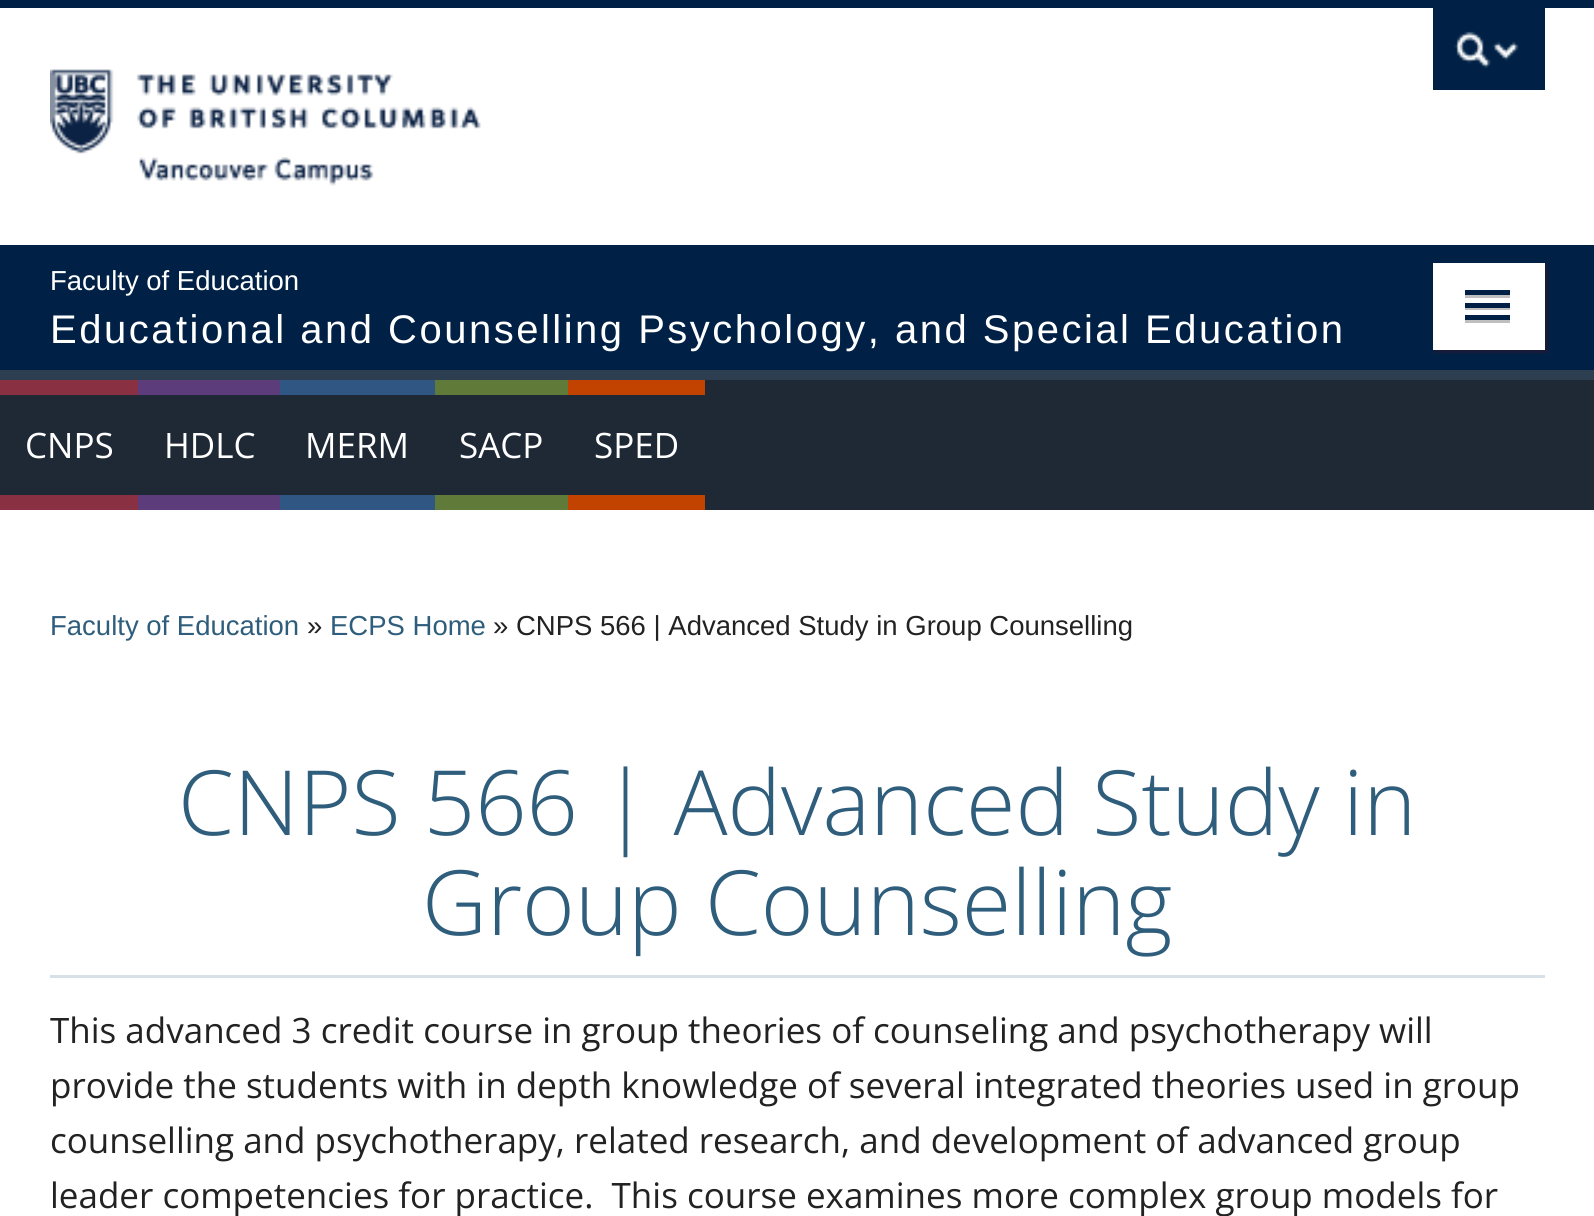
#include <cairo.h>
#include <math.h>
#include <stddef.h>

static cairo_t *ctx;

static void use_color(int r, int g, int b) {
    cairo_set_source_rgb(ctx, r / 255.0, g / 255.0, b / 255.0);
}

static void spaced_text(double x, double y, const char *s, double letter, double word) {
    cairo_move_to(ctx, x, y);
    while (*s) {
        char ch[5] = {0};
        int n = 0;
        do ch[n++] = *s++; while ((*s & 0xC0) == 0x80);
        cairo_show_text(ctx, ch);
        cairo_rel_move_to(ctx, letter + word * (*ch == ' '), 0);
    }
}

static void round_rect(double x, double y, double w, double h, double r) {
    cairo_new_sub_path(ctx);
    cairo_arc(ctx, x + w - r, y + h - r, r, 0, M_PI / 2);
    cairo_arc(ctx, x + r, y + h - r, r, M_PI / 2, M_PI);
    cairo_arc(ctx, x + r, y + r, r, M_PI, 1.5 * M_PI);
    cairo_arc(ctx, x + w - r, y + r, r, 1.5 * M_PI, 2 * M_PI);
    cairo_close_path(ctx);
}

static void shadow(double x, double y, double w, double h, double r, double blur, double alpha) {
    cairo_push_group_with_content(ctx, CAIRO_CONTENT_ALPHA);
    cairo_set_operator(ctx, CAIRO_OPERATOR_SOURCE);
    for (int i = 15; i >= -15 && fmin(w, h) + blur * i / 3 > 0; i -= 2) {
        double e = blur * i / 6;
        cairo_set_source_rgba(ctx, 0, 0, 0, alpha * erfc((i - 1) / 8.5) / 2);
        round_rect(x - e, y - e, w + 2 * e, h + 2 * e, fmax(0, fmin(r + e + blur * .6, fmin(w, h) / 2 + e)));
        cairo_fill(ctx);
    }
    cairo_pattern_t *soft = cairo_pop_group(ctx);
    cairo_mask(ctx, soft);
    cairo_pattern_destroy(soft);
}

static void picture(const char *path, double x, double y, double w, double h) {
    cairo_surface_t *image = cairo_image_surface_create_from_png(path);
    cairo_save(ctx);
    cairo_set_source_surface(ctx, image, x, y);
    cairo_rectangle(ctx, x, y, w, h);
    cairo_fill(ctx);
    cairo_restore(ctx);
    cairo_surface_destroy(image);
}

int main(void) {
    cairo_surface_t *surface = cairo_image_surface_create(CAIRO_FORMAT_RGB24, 1594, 1216);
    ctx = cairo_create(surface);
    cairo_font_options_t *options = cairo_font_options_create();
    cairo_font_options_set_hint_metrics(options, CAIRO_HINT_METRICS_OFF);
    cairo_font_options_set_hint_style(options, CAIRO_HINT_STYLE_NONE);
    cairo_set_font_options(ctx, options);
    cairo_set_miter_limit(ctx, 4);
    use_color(255, 255, 255);
    cairo_paint(ctx);
    use_color(0, 33, 69);
    cairo_rectangle(ctx, 0, 0, 1594, 8);
    cairo_fill(ctx);
    picture("img1.png", 50, 69, 431, 85);
    cairo_rectangle(ctx, 1433, 8, 112, 82);
    cairo_fill(ctx);
    picture("img2.png", 1454, 31, 65, 37);
    picture("img3.png", 139, 157, 235, 29);
    cairo_rectangle(ctx, 0, 245, 1594, 125);
    cairo_fill(ctx);
    cairo_select_font_face(ctx, "Liberation Sans", CAIRO_FONT_SLANT_NORMAL, CAIRO_FONT_WEIGHT_NORMAL);
    cairo_set_font_size(ctx, 27.5);
    use_color(255, 255, 255);
    cairo_move_to(ctx, 50, 290);
    cairo_show_text(ctx, "Faculty of Education");
    cairo_set_font_size(ctx, 40);
    spaced_text(50, 343, "Educational and Counselling Psychology, and Special Education", 2.5, 0);
    use_color(25, 25, 56);
    shadow(1435, 265, 113, 88, 0, 1, 1);
    use_color(255, 255, 255);
    cairo_rectangle(ctx, 1433, 263, 112, 87);
    cairo_fill(ctx);
    use_color(191, 191, 191);
    cairo_rectangle(ctx, 1465, 295, 45, 3);
    cairo_fill(ctx);
    use_color(0, 33, 69);
    cairo_rectangle(ctx, 1465, 290, 45, 5);
    cairo_fill(ctx);
    use_color(191, 191, 191);
    cairo_rectangle(ctx, 1465, 308, 45, 2);
    cairo_fill(ctx);
    use_color(0, 33, 69);
    cairo_rectangle(ctx, 1465, 303, 45, 5);
    cairo_fill(ctx);
    use_color(191, 191, 191);
    cairo_rectangle(ctx, 1465, 320, 45, 3);
    cairo_fill(ctx);
    use_color(0, 33, 69);
    cairo_rectangle(ctx, 1465, 315, 45, 5);
    cairo_fill(ctx);
    use_color(30, 41, 53);
    cairo_rectangle(ctx, 0, 380, 1594, 130);
    cairo_fill(ctx);
    use_color(44, 62, 80);
    cairo_rectangle(ctx, 0, 370, 1594, 10);
    cairo_fill(ctx);
    use_color(138, 48, 67);
    cairo_rectangle(ctx, 0, 380, 138, 15);
    cairo_fill(ctx);
    cairo_rectangle(ctx, 0, 495, 138, 15);
    cairo_fill(ctx);
    cairo_select_font_face(ctx, "Open Sans", CAIRO_FONT_SLANT_NORMAL, CAIRO_FONT_WEIGHT_NORMAL);
    cairo_set_font_size(ctx, 35);
    use_color(255, 255, 255);
    cairo_move_to(ctx, 25, 458);
    cairo_show_text(ctx, "CNPS");
    use_color(93, 60, 123);
    cairo_rectangle(ctx, 138, 380, 142, 15);
    cairo_fill(ctx);
    cairo_rectangle(ctx, 138, 495, 142, 15);
    cairo_fill(ctx);
    use_color(255, 255, 255);
    cairo_move_to(ctx, 164, 458);
    cairo_show_text(ctx, "HDLC");
    use_color(48, 86, 132);
    cairo_rectangle(ctx, 280, 380, 155, 15);
    cairo_fill(ctx);
    cairo_rectangle(ctx, 280, 495, 155, 15);
    cairo_fill(ctx);
    use_color(255, 255, 255);
    cairo_move_to(ctx, 305, 458);
    cairo_show_text(ctx, "MERM");
    use_color(96, 122, 58);
    cairo_rectangle(ctx, 435, 380, 133, 15);
    cairo_fill(ctx);
    cairo_rectangle(ctx, 435, 495, 133, 15);
    cairo_fill(ctx);
    use_color(255, 255, 255);
    cairo_move_to(ctx, 459, 458);
    cairo_show_text(ctx, "SACP");
    use_color(194, 66, 0);
    cairo_rectangle(ctx, 568, 380, 137, 15);
    cairo_fill(ctx);
    cairo_rectangle(ctx, 568, 495, 137, 15);
    cairo_fill(ctx);
    use_color(255, 255, 255);
    cairo_move_to(ctx, 594, 458);
    cairo_show_text(ctx, "SPED");
    cairo_select_font_face(ctx, "Liberation Sans", CAIRO_FONT_SLANT_NORMAL, CAIRO_FONT_WEIGHT_NORMAL);
    cairo_set_font_size(ctx, 27.5);
    use_color(47, 93, 124);
    cairo_move_to(ctx, 50, 635);
    cairo_show_text(ctx, "Faculty of Education");
    use_color(34, 34, 34);
    cairo_move_to(ctx, 307, 635);
    cairo_show_text(ctx, "»");
    use_color(47, 93, 124);
    cairo_move_to(ctx, 330, 635);
    cairo_show_text(ctx, "ECPS Home");
    use_color(34, 34, 34);
    cairo_move_to(ctx, 493, 635);
    cairo_show_text(ctx, "» CNPS 566 | Advanced Study in Group Counselling");
    use_color(215, 224, 231);
    cairo_rectangle(ctx, 50, 975, 1495, 3);
    cairo_fill(ctx);
    cairo_select_font_face(ctx, "Open Sans Light", CAIRO_FONT_SLANT_NORMAL, CAIRO_FONT_WEIGHT_NORMAL);
    cairo_set_font_size(ctx, 90);
    use_color(47, 93, 124);
    cairo_move_to(ctx, 178, 835);
    cairo_show_text(ctx, "CNPS 566 | Advanced Study in");
    cairo_move_to(ctx, 422, 935);
    cairo_show_text(ctx, "Group Counselling");
    cairo_select_font_face(ctx, "Open Sans", CAIRO_FONT_SLANT_NORMAL, CAIRO_FONT_WEIGHT_NORMAL);
    cairo_set_font_size(ctx, 35);
    use_color(34, 34, 34);
    cairo_move_to(ctx, 50, 1043);
    cairo_show_text(ctx, "This advanced 3 credit course in group theories of counseling and psychotherapy will");
    cairo_move_to(ctx, 50, 1098);
    cairo_show_text(ctx, "provide the students with in depth knowledge of several integrated theories used in group");
    cairo_move_to(ctx, 50, 1153);
    cairo_show_text(ctx, "counselling and psychotherapy, related research, and development of advanced group");
    cairo_move_to(ctx, 50, 1208);
    cairo_show_text(ctx, "leader competencies for practice.  This course examines more complex group models for");
    cairo_surface_write_to_png(surface, "result.png");
    cairo_font_options_destroy(options);
    cairo_destroy(ctx);
    cairo_surface_destroy(surface);
    return 0;
}
